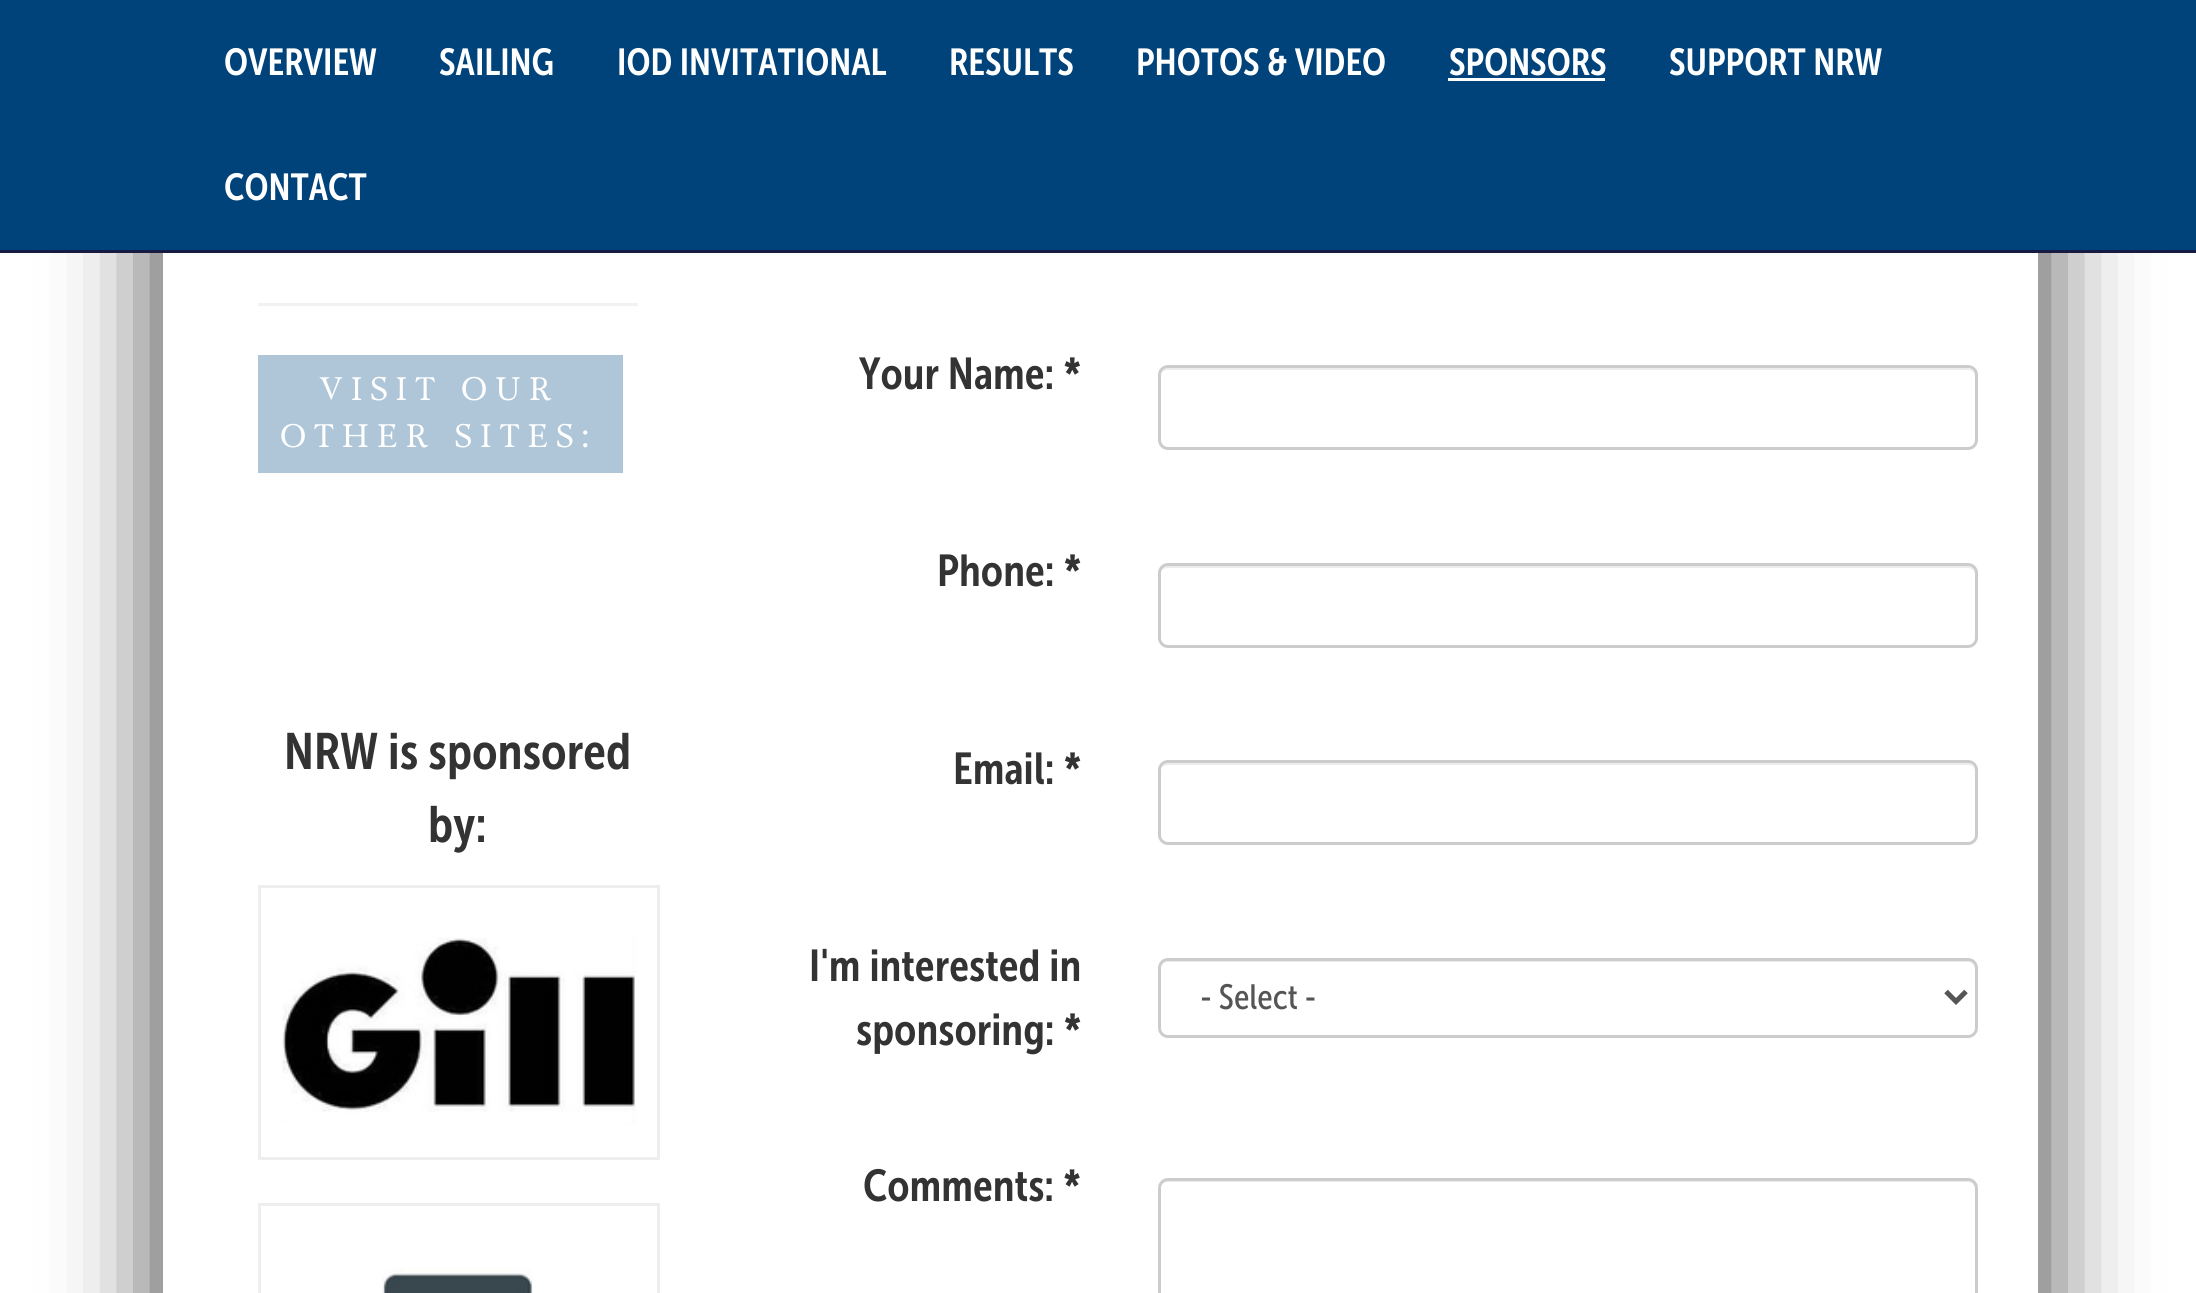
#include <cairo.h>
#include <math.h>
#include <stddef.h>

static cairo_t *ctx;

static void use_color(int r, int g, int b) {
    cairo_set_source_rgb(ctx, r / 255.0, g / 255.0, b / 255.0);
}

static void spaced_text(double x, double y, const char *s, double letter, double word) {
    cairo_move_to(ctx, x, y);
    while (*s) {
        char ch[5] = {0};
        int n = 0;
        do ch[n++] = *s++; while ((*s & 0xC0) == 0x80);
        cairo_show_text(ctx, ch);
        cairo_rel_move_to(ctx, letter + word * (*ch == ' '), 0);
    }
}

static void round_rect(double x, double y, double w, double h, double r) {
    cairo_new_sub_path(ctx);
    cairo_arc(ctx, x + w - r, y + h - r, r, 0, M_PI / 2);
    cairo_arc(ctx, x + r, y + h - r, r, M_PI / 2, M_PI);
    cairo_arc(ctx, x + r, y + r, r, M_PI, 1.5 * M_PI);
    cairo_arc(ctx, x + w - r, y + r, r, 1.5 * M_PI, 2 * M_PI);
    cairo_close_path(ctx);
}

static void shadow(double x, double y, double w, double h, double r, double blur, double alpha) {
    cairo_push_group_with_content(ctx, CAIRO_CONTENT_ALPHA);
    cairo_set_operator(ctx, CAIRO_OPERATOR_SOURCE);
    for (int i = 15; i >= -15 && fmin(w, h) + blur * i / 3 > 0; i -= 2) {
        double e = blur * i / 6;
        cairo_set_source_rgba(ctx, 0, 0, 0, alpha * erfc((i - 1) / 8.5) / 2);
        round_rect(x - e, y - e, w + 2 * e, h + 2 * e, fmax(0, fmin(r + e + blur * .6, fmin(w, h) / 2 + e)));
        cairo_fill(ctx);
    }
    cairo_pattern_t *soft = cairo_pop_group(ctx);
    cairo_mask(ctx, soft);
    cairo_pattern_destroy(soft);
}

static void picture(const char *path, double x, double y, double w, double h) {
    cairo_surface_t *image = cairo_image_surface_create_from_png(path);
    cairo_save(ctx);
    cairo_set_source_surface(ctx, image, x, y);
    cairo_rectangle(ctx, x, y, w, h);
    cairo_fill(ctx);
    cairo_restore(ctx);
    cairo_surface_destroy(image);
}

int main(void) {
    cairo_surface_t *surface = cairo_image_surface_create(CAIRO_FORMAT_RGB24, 2196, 1293);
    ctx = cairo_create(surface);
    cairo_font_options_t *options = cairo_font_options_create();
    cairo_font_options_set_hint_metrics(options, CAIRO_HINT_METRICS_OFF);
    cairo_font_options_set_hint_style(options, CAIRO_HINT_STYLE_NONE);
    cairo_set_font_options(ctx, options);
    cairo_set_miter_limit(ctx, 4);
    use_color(255, 255, 255);
    cairo_paint(ctx);
    use_color(0, 0, 0);
    shadow(158, -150, 1885, 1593, 0, 50, 0.75);
    use_color(0, 66, 122);
    cairo_rectangle(ctx, 0, 0, 2196, 250);
    cairo_fill(ctx);
    use_color(23, 27, 68);
    cairo_rectangle(ctx, 0, 250, 2196, 3);
    cairo_fill(ctx);
    cairo_select_font_face(ctx, "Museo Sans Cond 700 SemiBold", CAIRO_FONT_SLANT_NORMAL, CAIRO_FONT_WEIGHT_NORMAL);
    cairo_set_font_size(ctx, 37.5);
    use_color(255, 255, 255);
    cairo_move_to(ctx, 224, 75);
    cairo_show_text(ctx, "OVERVIEW");
    cairo_move_to(ctx, 439, 75);
    cairo_show_text(ctx, "SAILING");
    cairo_move_to(ctx, 617, 75);
    cairo_show_text(ctx, "IOD INVITATIONAL");
    cairo_move_to(ctx, 949, 75);
    cairo_show_text(ctx, "RESULTS");
    cairo_move_to(ctx, 1136, 75);
    cairo_show_text(ctx, "PHOTOS & VIDEO");
    cairo_move_to(ctx, 1449, 75);
    cairo_show_text(ctx, "SPONSORS");
    cairo_rectangle(ctx, 1448, 78, 157, 3);
    cairo_fill(ctx);
    cairo_move_to(ctx, 1669, 75);
    cairo_show_text(ctx, "SUPPORT NRW");
    cairo_move_to(ctx, 224, 200);
    cairo_show_text(ctx, "CONTACT");
    cairo_rectangle(ctx, 163, 253, 1875, 1040);
    cairo_fill(ctx);
    use_color(242, 242, 242);
    cairo_rectangle(ctx, 258, 303, 380, 3);
    cairo_fill(ctx);
    use_color(174, 198, 216);
    cairo_rectangle(ctx, 258, 355, 365, 118);
    cairo_fill(ctx);
    cairo_select_font_face(ctx, "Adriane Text", CAIRO_FONT_SLANT_NORMAL, CAIRO_FONT_WEIGHT_NORMAL);
    cairo_set_font_size(ctx, 32.5);
    use_color(255, 255, 255);
    spaced_text(319, 400, "VISIT OUR", 7.5, 0);
    spaced_text(280, 447, "OTHER SITES:", 7.5, 0);
    cairo_select_font_face(ctx, "Museo Sans Cond 700 SemiBold", CAIRO_FONT_SLANT_NORMAL, CAIRO_FONT_WEIGHT_NORMAL);
    cairo_set_font_size(ctx, 51);
    use_color(51, 51, 51);
    cairo_move_to(ctx, 284, 769);
    cairo_show_text(ctx, "NRW is sponsored");
    cairo_move_to(ctx, 428, 842);
    cairo_show_text(ctx, "by:");
    cairo_rectangle(ctx, 259.5, 886.5, 399, 272);
    use_color(238, 238, 238);
    cairo_set_line_width(ctx, 3);
    cairo_stroke(ctx);
    picture("img1.png", 282, 937, 354, 188);
    cairo_rectangle(ctx, 259.5, 1204.5, 399, 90);
    cairo_stroke(ctx);
    picture("img2.png", 382, 1269, 151, 24);
    cairo_set_font_size(ctx, 44.5);
    use_color(51, 51, 51);
    cairo_move_to(ctx, 859, 389);
    cairo_show_text(ctx, "Your Name: *");
    use_color(236, 236, 236);
    cairo_new_path(ctx);
    cairo_move_to(ctx, 1168, 370);
    cairo_line_to(ctx, 1968, 370);
    cairo_curve_to(ctx, 1972, 370, 1975, 373, 1975, 378);
    cairo_line_to(ctx, 1975, 376);
    cairo_curve_to(ctx, 1975, 372, 1971, 368, 1967, 368);
    cairo_line_to(ctx, 1168, 368);
    cairo_curve_to(ctx, 1164, 368, 1160, 372, 1160, 376);
    cairo_line_to(ctx, 1160, 378);
    cairo_curve_to(ctx, 1160, 373, 1163, 370, 1168, 370);
    cairo_close_path(ctx);
    cairo_fill(ctx);
    round_rect(1159.5, 366.5, 817, 82, 8.5);
    use_color(204, 204, 204);
    cairo_stroke(ctx);
    use_color(51, 51, 51);
    cairo_move_to(ctx, 937, 586);
    cairo_show_text(ctx, "Phone: *");
    use_color(236, 236, 236);
    cairo_new_path(ctx);
    cairo_move_to(ctx, 1168, 568);
    cairo_line_to(ctx, 1968, 568);
    cairo_curve_to(ctx, 1972, 568, 1975, 571, 1975, 575);
    cairo_line_to(ctx, 1975, 573);
    cairo_curve_to(ctx, 1975, 569, 1971, 565, 1967, 565);
    cairo_line_to(ctx, 1168, 565);
    cairo_curve_to(ctx, 1164, 565, 1160, 569, 1160, 573);
    cairo_line_to(ctx, 1160, 575);
    cairo_curve_to(ctx, 1160, 571, 1163, 568, 1168, 568);
    cairo_close_path(ctx);
    cairo_fill(ctx);
    round_rect(1159.5, 564.5, 817, 82, 8.5);
    use_color(204, 204, 204);
    cairo_stroke(ctx);
    use_color(51, 51, 51);
    cairo_move_to(ctx, 953, 784);
    cairo_show_text(ctx, "Email: *");
    use_color(236, 236, 236);
    cairo_new_path(ctx);
    cairo_move_to(ctx, 1168, 765);
    cairo_line_to(ctx, 1968, 765);
    cairo_curve_to(ctx, 1972, 765, 1975, 768, 1975, 772);
    cairo_line_to(ctx, 1975, 771);
    cairo_curve_to(ctx, 1975, 767, 1971, 763, 1967, 763);
    cairo_line_to(ctx, 1168, 763);
    cairo_curve_to(ctx, 1164, 763, 1160, 767, 1160, 771);
    cairo_line_to(ctx, 1160, 772);
    cairo_curve_to(ctx, 1160, 768, 1163, 765, 1168, 765);
    cairo_close_path(ctx);
    cairo_fill(ctx);
    round_rect(1159.5, 761.5, 817, 82, 8.5);
    use_color(204, 204, 204);
    cairo_stroke(ctx);
    use_color(51, 51, 51);
    cairo_move_to(ctx, 809, 981);
    cairo_show_text(ctx, "I'm interested in");
    cairo_move_to(ctx, 856, 1045);
    cairo_show_text(ctx, "sponsoring: *");
    use_color(236, 236, 236);
    cairo_new_path(ctx);
    cairo_move_to(ctx, 1168, 962);
    cairo_line_to(ctx, 1968, 962);
    cairo_curve_to(ctx, 1972, 962, 1975, 966, 1975, 970);
    cairo_line_to(ctx, 1975, 968);
    cairo_curve_to(ctx, 1975, 964, 1971, 960, 1967, 960);
    cairo_line_to(ctx, 1168, 960);
    cairo_curve_to(ctx, 1164, 960, 1160, 964, 1160, 968);
    cairo_line_to(ctx, 1160, 970);
    cairo_curve_to(ctx, 1160, 966, 1163, 962, 1168, 962);
    cairo_close_path(ctx);
    cairo_fill(ctx);
    round_rect(1159.5, 959.5, 817, 77, 8.5);
    use_color(204, 204, 204);
    cairo_stroke(ctx);
    cairo_new_path(ctx);
    cairo_move_to(ctx, 1946, 991.5);
    cairo_line_to(ctx, 1956, 1001.5);
    cairo_line_to(ctx, 1966, 991.5);
    use_color(85, 85, 85);
    cairo_set_line_width(ctx, 5);
    cairo_stroke(ctx);
    cairo_select_font_face(ctx, "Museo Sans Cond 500", CAIRO_FONT_SLANT_NORMAL, CAIRO_FONT_WEIGHT_NORMAL);
    cairo_set_font_size(ctx, 35);
    cairo_move_to(ctx, 1200, 1009);
    cairo_show_text(ctx, "- Select -");
    cairo_select_font_face(ctx, "Museo Sans Cond 700 SemiBold", CAIRO_FONT_SLANT_NORMAL, CAIRO_FONT_WEIGHT_NORMAL);
    cairo_set_font_size(ctx, 44.5);
    use_color(51, 51, 51);
    cairo_move_to(ctx, 863, 1201);
    cairo_show_text(ctx, "Comments: *");
    use_color(236, 236, 236);
    cairo_new_path(ctx);
    cairo_move_to(ctx, 1168, 1182);
    cairo_line_to(ctx, 1968, 1182);
    cairo_curve_to(ctx, 1972, 1182, 1975, 1186, 1975, 1190);
    cairo_line_to(ctx, 1975, 1188);
    cairo_curve_to(ctx, 1975, 1184, 1971, 1180, 1967, 1180);
    cairo_line_to(ctx, 1168, 1180);
    cairo_curve_to(ctx, 1164, 1180, 1160, 1184, 1160, 1188);
    cairo_line_to(ctx, 1160, 1190);
    cairo_curve_to(ctx, 1160, 1186, 1163, 1182, 1168, 1182);
    cairo_close_path(ctx);
    cairo_fill(ctx);
    round_rect(1159.5, 1179.5, 817, 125, 8.5);
    use_color(204, 204, 204);
    cairo_set_line_width(ctx, 3);
    cairo_stroke(ctx);
    cairo_surface_write_to_png(surface, "result.png");
    cairo_font_options_destroy(options);
    cairo_destroy(ctx);
    cairo_surface_destroy(surface);
    return 0;
}
